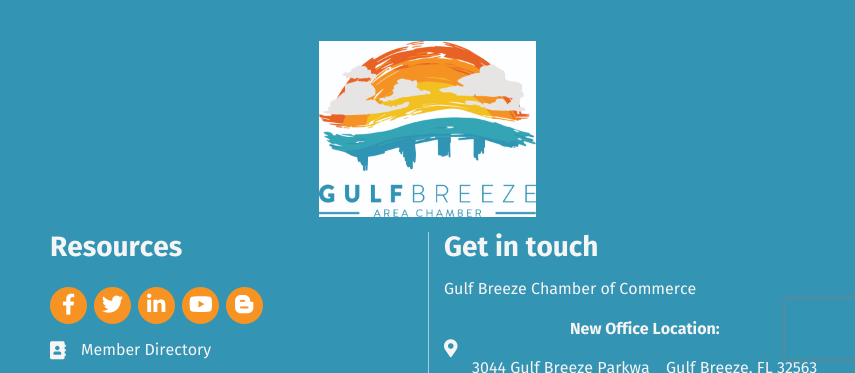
#include <cairo.h>
#include <math.h>
#include <stddef.h>

static cairo_t *ctx;

static void use_color(int r, int g, int b) {
    cairo_set_source_rgb(ctx, r / 255.0, g / 255.0, b / 255.0);
}

static void round_rect(double x, double y, double w, double h, double r) {
    cairo_new_sub_path(ctx);
    cairo_arc(ctx, x + w - r, y + h - r, r, 0, M_PI / 2);
    cairo_arc(ctx, x + r, y + h - r, r, M_PI / 2, M_PI);
    cairo_arc(ctx, x + r, y + r, r, M_PI, 1.5 * M_PI);
    cairo_arc(ctx, x + w - r, y + r, r, 1.5 * M_PI, 2 * M_PI);
    cairo_close_path(ctx);
}

static void shadow(double x, double y, double w, double h, double r, double blur, double alpha) {
    cairo_push_group_with_content(ctx, CAIRO_CONTENT_ALPHA);
    cairo_set_operator(ctx, CAIRO_OPERATOR_SOURCE);
    for (int i = 15; i >= -15 && fmin(w, h) + blur * i / 3 > 0; i -= 2) {
        double e = blur * i / 6;
        cairo_set_source_rgba(ctx, 0, 0, 0, alpha * erfc((i - 1) / 8.5) / 2);
        round_rect(x - e, y - e, w + 2 * e, h + 2 * e, fmax(0, fmin(r + e + blur * .6, fmin(w, h) / 2 + e)));
        cairo_fill(ctx);
    }
    cairo_pattern_t *soft = cairo_pop_group(ctx);
    cairo_mask(ctx, soft);
    cairo_pattern_destroy(soft);
}

static void picture(const char *path, double x, double y, double w, double h) {
    cairo_surface_t *image = cairo_image_surface_create_from_png(path);
    cairo_save(ctx);
    cairo_set_source_surface(ctx, image, x, y);
    cairo_rectangle(ctx, x, y, w, h);
    cairo_fill(ctx);
    cairo_restore(ctx);
    cairo_surface_destroy(image);
}

int main(void) {
    cairo_surface_t *surface = cairo_image_surface_create(CAIRO_FORMAT_RGB24, 855, 373);
    ctx = cairo_create(surface);
    cairo_font_options_t *options = cairo_font_options_create();
    cairo_font_options_set_hint_metrics(options, CAIRO_HINT_METRICS_OFF);
    cairo_font_options_set_hint_style(options, CAIRO_HINT_STYLE_NONE);
    cairo_set_font_options(ctx, options);
    cairo_set_miter_limit(ctx, 4);
    use_color(52, 148, 180);
    cairo_paint(ctx);
    picture("img1.png", 319, 41, 217, 176);
    cairo_select_font_face(ctx, "Fira Sans", CAIRO_FONT_SLANT_NORMAL, CAIRO_FONT_WEIGHT_BOLD);
    cairo_set_font_size(ctx, 28);
    use_color(245, 245, 245);
    cairo_move_to(ctx, 50, 256);
    cairo_show_text(ctx, "Resources");
    use_color(246, 147, 34);
    cairo_new_path(ctx);
    cairo_arc(ctx, 68.5, 305.5, 18.5, 0, 2 * M_PI);
    cairo_fill(ctx);
    picture("img2.png", 62, 293, 13, 22);
    cairo_arc(ctx, 112.5, 305.5, 18.5, 0, 2 * M_PI);
    cairo_fill(ctx);
    picture("img3.png", 102, 295, 21, 18);
    cairo_arc(ctx, 156.5, 305.5, 18.5, 0, 2 * M_PI);
    cairo_fill(ctx);
    picture("img4.png", 147, 293, 19, 19);
    cairo_arc(ctx, 200.5, 305.5, 18.5, 0, 2 * M_PI);
    cairo_fill(ctx);
    picture("img5.png", 189, 296, 23, 16);
    cairo_arc(ctx, 244.5, 305.5, 18.5, 0, 2 * M_PI);
    cairo_fill(ctx);
    picture("img6.png", 235, 294, 19, 20);
    picture("img7.png", 50, 341, 16, 19);
    cairo_select_font_face(ctx, "Fira Sans", CAIRO_FONT_SLANT_NORMAL, CAIRO_FONT_WEIGHT_NORMAL);
    cairo_set_font_size(ctx, 16);
    use_color(245, 245, 245);
    cairo_move_to(ctx, 81, 355);
    cairo_show_text(ctx, "Member Directory");
    use_color(162, 206, 221);
    cairo_rectangle(ctx, 428, 232, 1, 141);
    cairo_fill(ctx);
    cairo_select_font_face(ctx, "Fira Sans", CAIRO_FONT_SLANT_NORMAL, CAIRO_FONT_WEIGHT_BOLD);
    cairo_set_font_size(ctx, 28);
    use_color(245, 245, 245);
    cairo_move_to(ctx, 444, 256);
    cairo_show_text(ctx, "Get in touch");
    cairo_select_font_face(ctx, "Fira Sans", CAIRO_FONT_SLANT_NORMAL, CAIRO_FONT_WEIGHT_NORMAL);
    cairo_set_font_size(ctx, 16);
    cairo_move_to(ctx, 444, 294);
    cairo_show_text(ctx, "Gulf Breeze Chamber of Commerce");
    picture("img8.png", 444, 339, 14, 19);
    cairo_select_font_face(ctx, "Fira Sans", CAIRO_FONT_SLANT_NORMAL, CAIRO_FONT_WEIGHT_BOLD);
    cairo_move_to(ctx, 570, 334);
    cairo_show_text(ctx, "New Office Location:");
    cairo_select_font_face(ctx, "Fira Sans", CAIRO_FONT_SLANT_NORMAL, CAIRO_FONT_WEIGHT_NORMAL);
    cairo_move_to(ctx, 472, 373);
    cairo_show_text(ctx, "3044 Gulf Breeze Parkwa");
    cairo_move_to(ctx, 666, 373);
    cairo_show_text(ctx, "Gulf Breeze, FL 32563");
    cairo_save(ctx);
    cairo_set_fill_rule(ctx, CAIRO_FILL_RULE_EVEN_ODD);
    cairo_new_path(ctx);
    cairo_move_to(ctx, 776, 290);
    cairo_line_to(ctx, 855, 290);
    cairo_line_to(ctx, 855, 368);
    cairo_line_to(ctx, 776, 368);
    cairo_close_path(ctx);
    cairo_move_to(ctx, 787, 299);
    cairo_line_to(ctx, 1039, 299);
    cairo_curve_to(ctx, 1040, 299, 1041, 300, 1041, 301);
    cairo_line_to(ctx, 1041, 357);
    cairo_curve_to(ctx, 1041, 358, 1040, 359, 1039, 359);
    cairo_line_to(ctx, 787, 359);
    cairo_curve_to(ctx, 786, 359, 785, 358, 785, 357);
    cairo_line_to(ctx, 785, 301);
    cairo_curve_to(ctx, 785, 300, 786, 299, 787, 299);
    cairo_close_path(ctx);
    cairo_clip(ctx);
    use_color(128, 128, 128);
    shadow(785, 299, 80, 60, 2, 2.5, 1);
    cairo_restore(ctx);
    cairo_surface_write_to_png(surface, "result.png");
    cairo_font_options_destroy(options);
    cairo_destroy(ctx);
    cairo_surface_destroy(surface);
    return 0;
}
